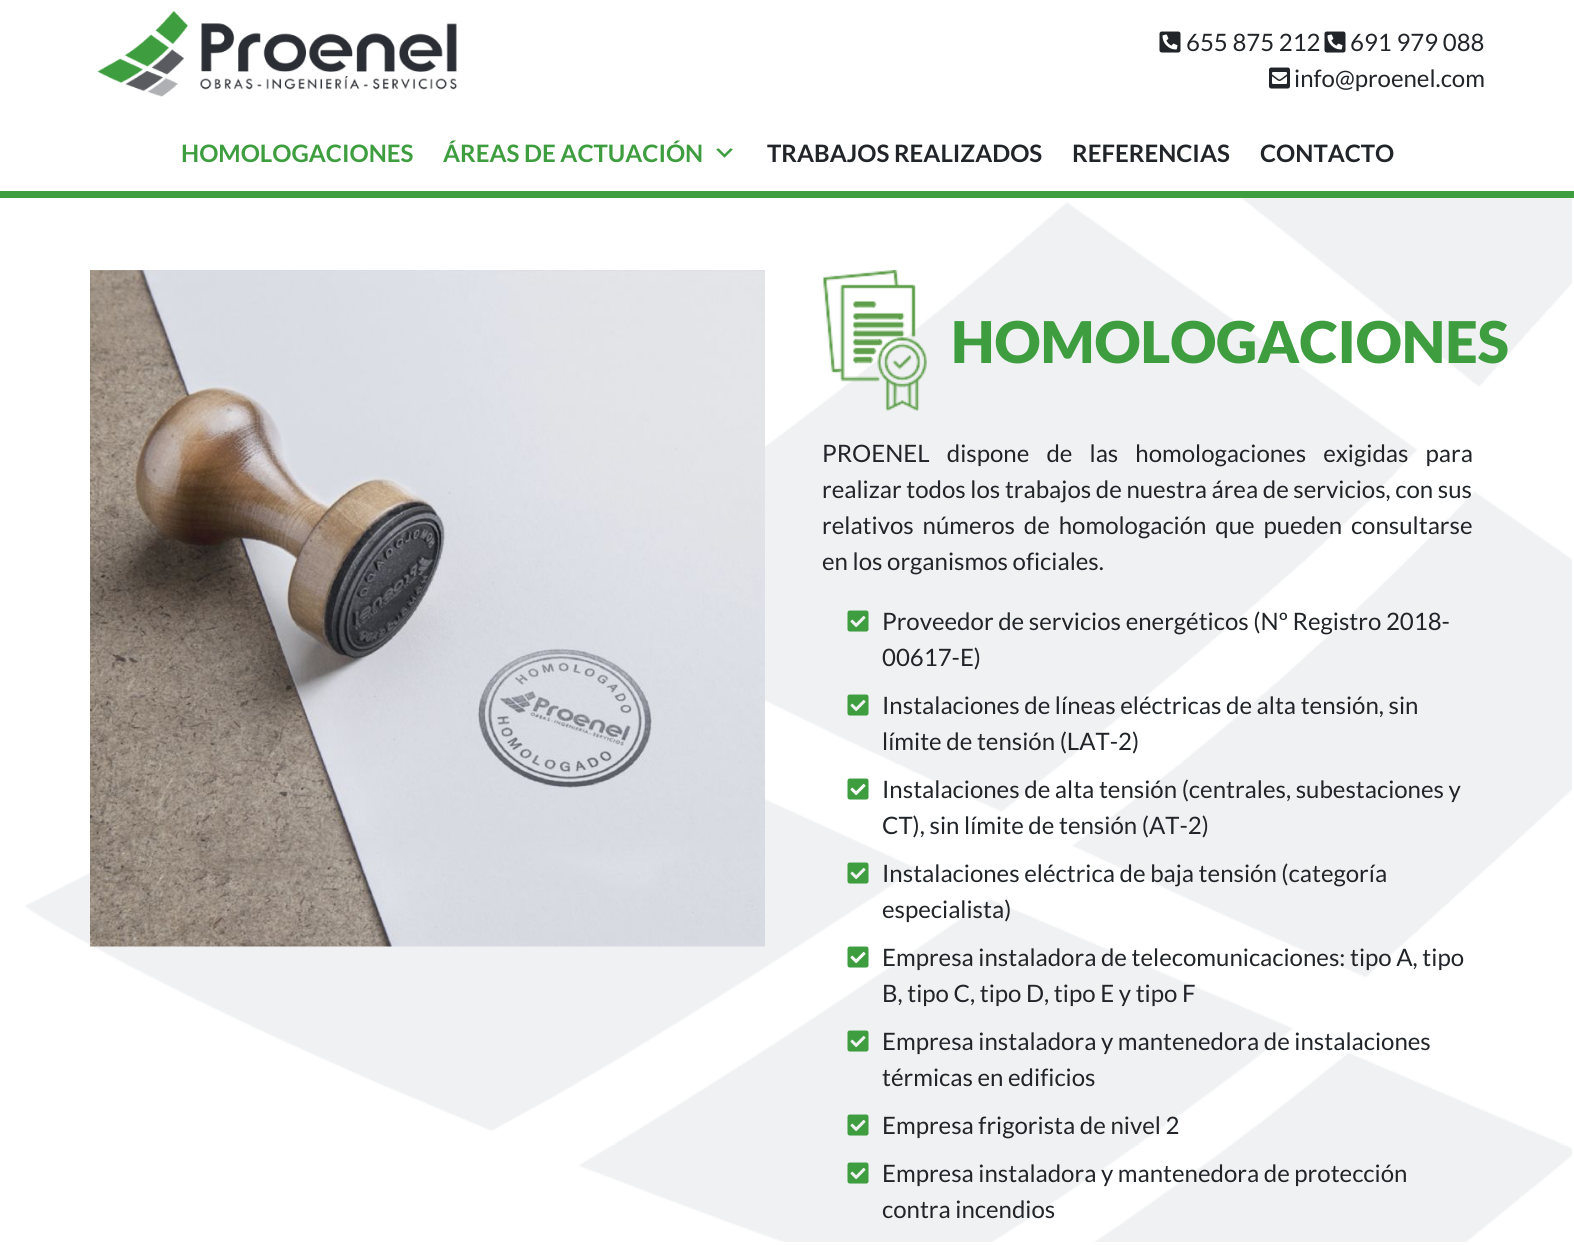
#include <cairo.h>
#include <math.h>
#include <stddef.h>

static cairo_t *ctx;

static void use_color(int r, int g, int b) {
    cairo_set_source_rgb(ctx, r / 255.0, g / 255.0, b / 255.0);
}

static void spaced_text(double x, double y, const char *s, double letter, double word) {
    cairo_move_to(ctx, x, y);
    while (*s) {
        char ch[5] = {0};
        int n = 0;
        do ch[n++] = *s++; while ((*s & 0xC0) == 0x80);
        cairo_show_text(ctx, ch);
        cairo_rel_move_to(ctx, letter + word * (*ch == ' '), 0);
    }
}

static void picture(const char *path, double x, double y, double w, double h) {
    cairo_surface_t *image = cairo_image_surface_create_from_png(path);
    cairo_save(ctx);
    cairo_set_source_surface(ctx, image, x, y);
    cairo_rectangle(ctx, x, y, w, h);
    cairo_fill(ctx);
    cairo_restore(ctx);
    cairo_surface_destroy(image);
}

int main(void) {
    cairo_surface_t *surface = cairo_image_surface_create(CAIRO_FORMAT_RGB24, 1574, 1245);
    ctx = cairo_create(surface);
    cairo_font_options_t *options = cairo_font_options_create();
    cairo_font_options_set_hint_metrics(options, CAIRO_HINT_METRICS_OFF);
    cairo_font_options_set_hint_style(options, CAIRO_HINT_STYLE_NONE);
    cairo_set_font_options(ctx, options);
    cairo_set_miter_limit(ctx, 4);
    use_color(255, 255, 255);
    cairo_paint(ctx);
    picture("img1.png", 25, 198, 1547, 1044);
    picture("img2.png", 97, 11, 360, 86);
    picture("img3.png", 1159, 31, 22, 22);
    cairo_select_font_face(ctx, "Lato", CAIRO_FONT_SLANT_NORMAL, CAIRO_FONT_WEIGHT_NORMAL);
    cairo_set_font_size(ctx, 24);
    use_color(33, 37, 41);
    cairo_move_to(ctx, 1186, 51);
    cairo_show_text(ctx, "655 875 212");
    picture("img3.png", 1324, 31, 22, 22);
    cairo_move_to(ctx, 1350, 51);
    cairo_show_text(ctx, "691 979 088");
    picture("img4.png", 1269, 67, 21, 22);
    cairo_move_to(ctx, 1294, 87);
    cairo_show_text(ctx, "info@proenel.com");
    use_color(62, 157, 63);
    cairo_rectangle(ctx, 0, 191, 1574, 7);
    cairo_fill(ctx);
    cairo_select_font_face(ctx, "Lato", CAIRO_FONT_SLANT_NORMAL, CAIRO_FONT_WEIGHT_BOLD);
    cairo_move_to(ctx, 181, 162);
    cairo_show_text(ctx, "HOMOLOGACIONES");
    cairo_move_to(ctx, 443, 162);
    cairo_show_text(ctx, "ÁREAS DE ACTUACIÓN");
    picture("img5.png", 716, 148, 17, 10);
    use_color(33, 37, 41);
    cairo_move_to(ctx, 767, 162);
    cairo_show_text(ctx, "TRABAJOS REALIZADOS");
    cairo_move_to(ctx, 1072, 162);
    cairo_show_text(ctx, "REFERENCIAS");
    cairo_move_to(ctx, 1260, 162);
    cairo_show_text(ctx, "CONTACTO");
    picture("img6.png", 90, 270, 675, 677);
    picture("img7.png", 822, 270, 105, 141);
    cairo_select_font_face(ctx, "Lato Black", CAIRO_FONT_SLANT_NORMAL, CAIRO_FONT_WEIGHT_NORMAL);
    cairo_set_font_size(ctx, 57.5);
    use_color(62, 157, 63);
    cairo_move_to(ctx, 951, 363);
    cairo_show_text(ctx, "HOMOLOGACIONES");
    cairo_select_font_face(ctx, "Lato", CAIRO_FONT_SLANT_NORMAL, CAIRO_FONT_WEIGHT_NORMAL);
    cairo_set_font_size(ctx, 24);
    use_color(33, 37, 41);
    spaced_text(822, 462, "PROENEL dispone de las homologaciones exigidas para", 0, 12.5);
    cairo_move_to(ctx, 822, 498);
    cairo_show_text(ctx, "realizar todos los trabajos de nuestra área de servicios, con sus");
    spaced_text(822, 534, "relativos números de homologación que pueden consultarse", 0, 4.25);
    cairo_move_to(ctx, 822, 570);
    cairo_show_text(ctx, "en los organismos oficiales.");
    picture("img8.png", 847, 610, 22, 22);
    cairo_move_to(ctx, 882, 630);
    cairo_show_text(ctx, "Proveedor de servicios energéticos (Nº Registro 2018-");
    cairo_move_to(ctx, 882, 666);
    cairo_show_text(ctx, "00617-E)");
    picture("img8.png", 847, 694, 22, 22);
    cairo_move_to(ctx, 882, 714);
    cairo_show_text(ctx, "Instalaciones de líneas eléctricas de alta tensión, sin");
    cairo_move_to(ctx, 882, 750);
    cairo_show_text(ctx, "límite de tensión (LAT-2)");
    picture("img9.png", 847, 778, 22, 22);
    cairo_move_to(ctx, 882, 798);
    cairo_show_text(ctx, "Instalaciones de alta tensión (centrales, subestaciones y");
    cairo_move_to(ctx, 882, 834);
    cairo_show_text(ctx, "CT), sin límite de tensión (AT-2)");
    picture("img8.png", 847, 862, 22, 22);
    cairo_move_to(ctx, 882, 882);
    cairo_show_text(ctx, "Instalaciones eléctrica de baja tensión (categoría");
    cairo_move_to(ctx, 882, 918);
    cairo_show_text(ctx, "especialista)");
    picture("img9.png", 847, 946, 22, 22);
    cairo_move_to(ctx, 882, 966);
    cairo_show_text(ctx, "Empresa instaladora de telecomunicaciones: tipo A, tipo");
    cairo_move_to(ctx, 882, 1002);
    cairo_show_text(ctx, "B, tipo C, tipo D, tipo E y tipo F");
    picture("img8.png", 847, 1030, 22, 22);
    cairo_move_to(ctx, 882, 1050);
    cairo_show_text(ctx, "Empresa instaladora y mantenedora de instalaciones");
    cairo_move_to(ctx, 882, 1086);
    cairo_show_text(ctx, "térmicas en edificios");
    picture("img8.png", 847, 1114, 22, 22);
    cairo_move_to(ctx, 882, 1134);
    cairo_show_text(ctx, "Empresa frigorista de nivel 2");
    picture("img8.png", 847, 1162, 22, 22);
    cairo_move_to(ctx, 882, 1182);
    cairo_show_text(ctx, "Empresa instaladora y mantenedora de protección");
    cairo_move_to(ctx, 882, 1218);
    cairo_show_text(ctx, "contra incendios");
    cairo_surface_write_to_png(surface, "result.png");
    cairo_font_options_destroy(options);
    cairo_destroy(ctx);
    cairo_surface_destroy(surface);
    return 0;
}
